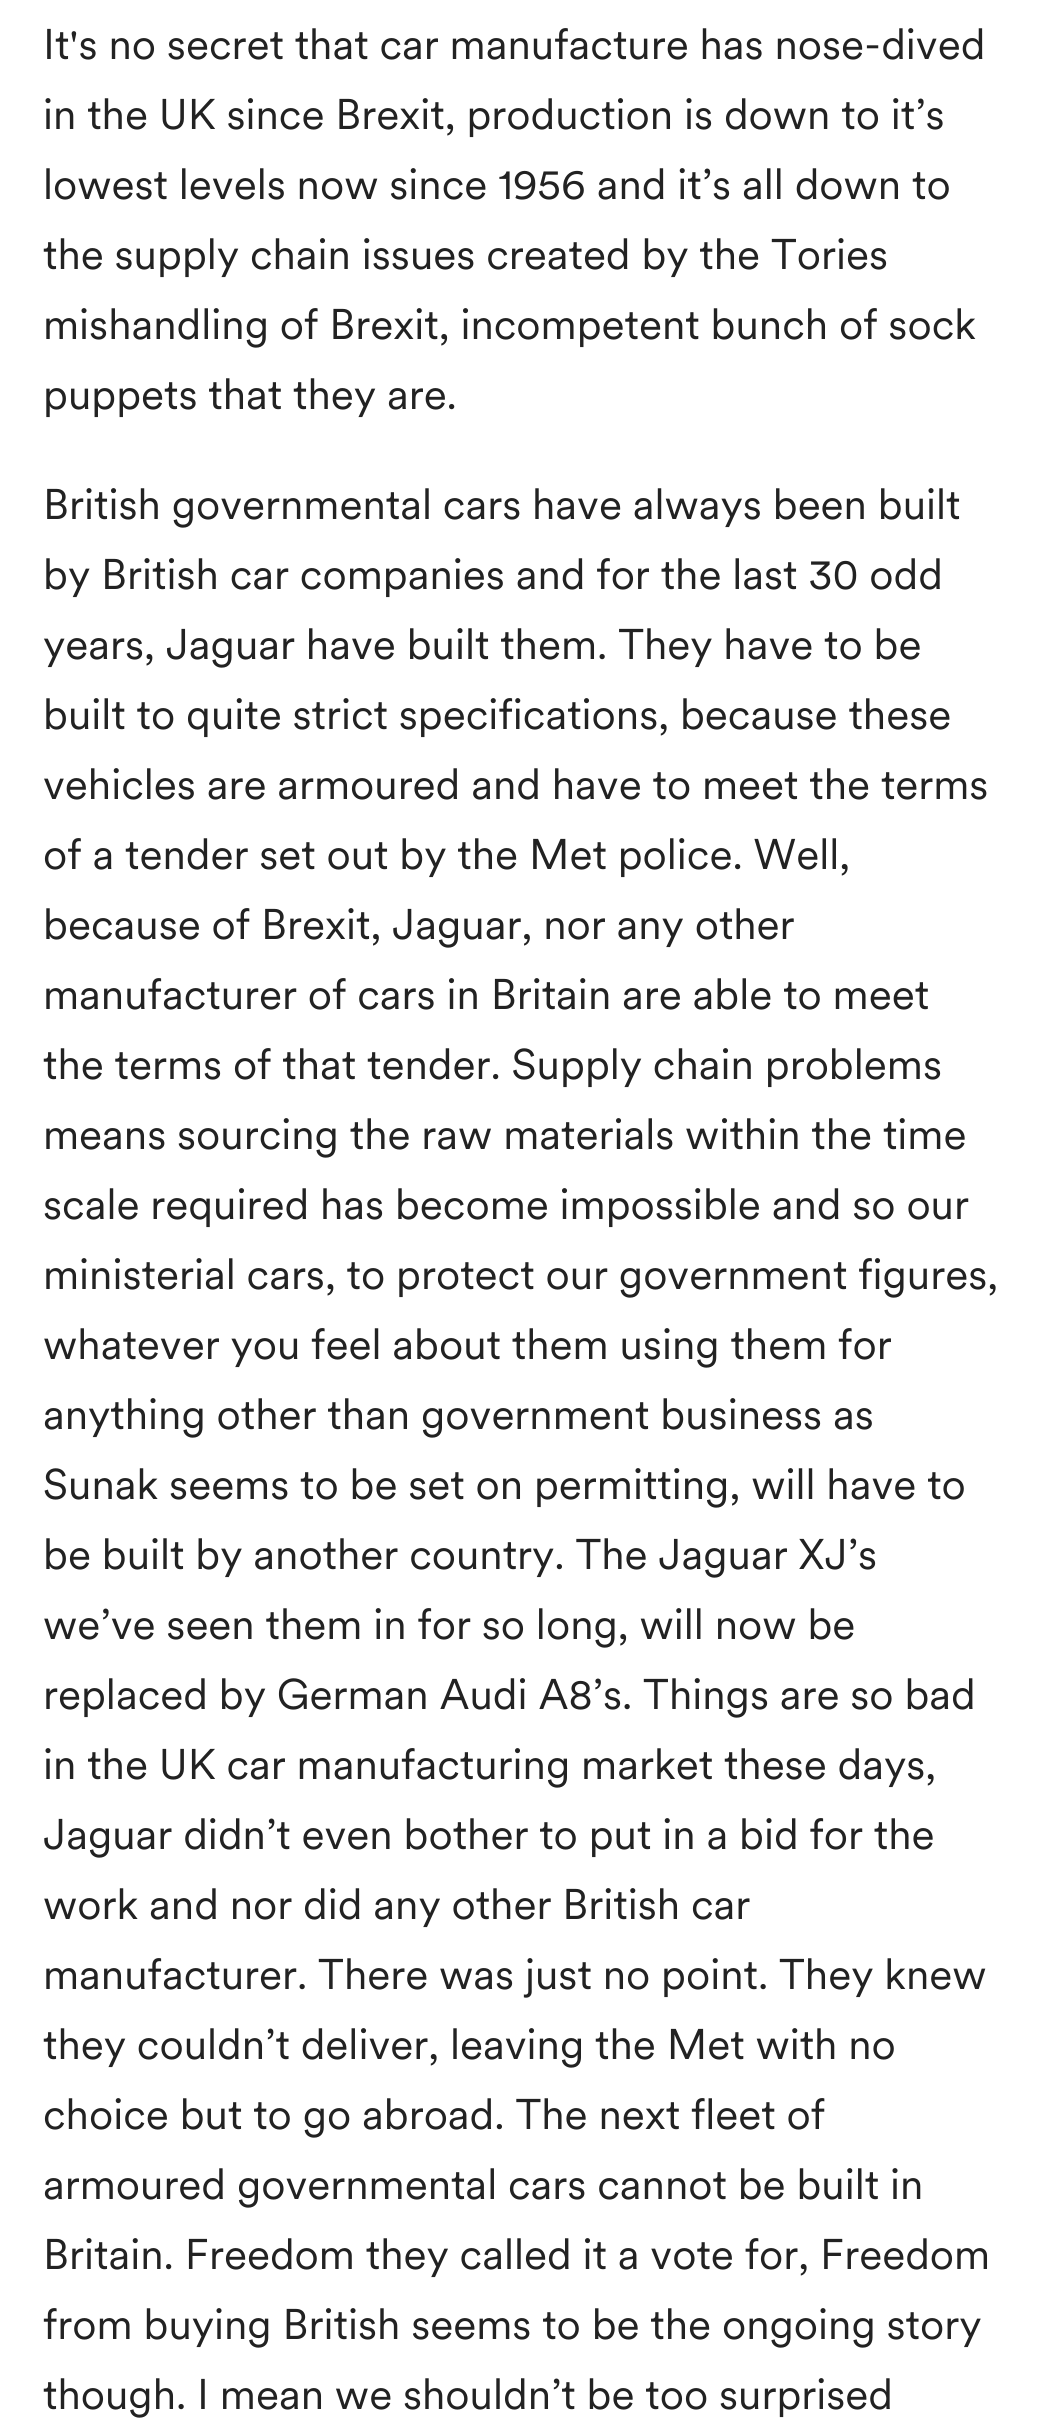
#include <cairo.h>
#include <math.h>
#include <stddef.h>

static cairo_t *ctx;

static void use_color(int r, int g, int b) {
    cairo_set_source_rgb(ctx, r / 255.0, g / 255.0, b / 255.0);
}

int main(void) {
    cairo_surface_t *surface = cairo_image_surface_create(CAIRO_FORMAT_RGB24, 1042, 2435);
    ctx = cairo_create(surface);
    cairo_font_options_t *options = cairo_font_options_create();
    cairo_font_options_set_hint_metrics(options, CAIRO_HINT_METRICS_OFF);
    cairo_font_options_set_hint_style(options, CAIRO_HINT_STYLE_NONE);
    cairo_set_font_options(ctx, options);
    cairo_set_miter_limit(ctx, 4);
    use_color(255, 255, 255);
    cairo_paint(ctx);
    cairo_select_font_face(ctx, "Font", CAIRO_FONT_SLANT_NORMAL, CAIRO_FONT_WEIGHT_NORMAL);
    cairo_set_font_size(ctx, 42.5);
    use_color(34, 34, 34);
    cairo_move_to(ctx, 43, 59);
    cairo_show_text(ctx, "It's no secret that car manufacture has nose-dived");
    cairo_move_to(ctx, 43, 129);
    cairo_show_text(ctx, "in the UK since Brexit, production is down to it’s");
    cairo_move_to(ctx, 43, 199);
    cairo_show_text(ctx, "lowest levels now since 1956 and it’s all down to");
    cairo_move_to(ctx, 43, 269);
    cairo_show_text(ctx, "the supply chain issues created by the Tories");
    cairo_move_to(ctx, 43, 339);
    cairo_show_text(ctx, "mishandling of Brexit, incompetent bunch of sock");
    cairo_move_to(ctx, 43, 409);
    cairo_show_text(ctx, "puppets that they are.");
    cairo_move_to(ctx, 43, 519);
    cairo_show_text(ctx, "British governmental cars have always been built");
    cairo_move_to(ctx, 43, 589);
    cairo_show_text(ctx, "by British car companies and for the last 30 odd");
    cairo_move_to(ctx, 43, 659);
    cairo_show_text(ctx, "years, Jaguar have built them. They have to be");
    cairo_move_to(ctx, 43, 729);
    cairo_show_text(ctx, "built to quite strict specifications, because these");
    cairo_move_to(ctx, 43, 799);
    cairo_show_text(ctx, "vehicles are armoured and have to meet the terms");
    cairo_move_to(ctx, 43, 869);
    cairo_show_text(ctx, "of a tender set out by the Met police. Well,");
    cairo_move_to(ctx, 43, 939);
    cairo_show_text(ctx, "because of Brexit, Jaguar, nor any other");
    cairo_move_to(ctx, 43, 1009);
    cairo_show_text(ctx, "manufacturer of cars in Britain are able to meet");
    cairo_move_to(ctx, 43, 1079);
    cairo_show_text(ctx, "the terms of that tender. Supply chain problems");
    cairo_move_to(ctx, 43, 1149);
    cairo_show_text(ctx, "means sourcing the raw materials within the time");
    cairo_move_to(ctx, 43, 1219);
    cairo_show_text(ctx, "scale required has become impossible and so our");
    cairo_move_to(ctx, 43, 1289);
    cairo_show_text(ctx, "ministerial cars, to protect our government figures,");
    cairo_move_to(ctx, 43, 1359);
    cairo_show_text(ctx, "whatever you feel about them using them for");
    cairo_move_to(ctx, 43, 1429);
    cairo_show_text(ctx, "anything other than government business as");
    cairo_move_to(ctx, 43, 1499);
    cairo_show_text(ctx, "Sunak seems to be set on permitting, will have to");
    cairo_move_to(ctx, 43, 1569);
    cairo_show_text(ctx, "be built by another country. The Jaguar XJ’s");
    cairo_move_to(ctx, 43, 1639);
    cairo_show_text(ctx, "we’ve seen them in for so long, will now be");
    cairo_move_to(ctx, 43, 1709);
    cairo_show_text(ctx, "replaced by German Audi A8’s. Things are so bad");
    cairo_move_to(ctx, 43, 1779);
    cairo_show_text(ctx, "in the UK car manufacturing market these days,");
    cairo_move_to(ctx, 43, 1849);
    cairo_show_text(ctx, "Jaguar didn’t even bother to put in a bid for the");
    cairo_move_to(ctx, 43, 1919);
    cairo_show_text(ctx, "work and nor did any other British car");
    cairo_move_to(ctx, 43, 1989);
    cairo_show_text(ctx, "manufacturer. There was just no point. They knew");
    cairo_move_to(ctx, 43, 2059);
    cairo_show_text(ctx, "they couldn’t deliver, leaving the Met with no");
    cairo_move_to(ctx, 43, 2129);
    cairo_show_text(ctx, "choice but to go abroad. The next fleet of");
    cairo_move_to(ctx, 43, 2199);
    cairo_show_text(ctx, "armoured governmental cars cannot be built in");
    cairo_move_to(ctx, 43, 2269);
    cairo_show_text(ctx, "Britain. Freedom they called it a vote for, Freedom");
    cairo_move_to(ctx, 43, 2339);
    cairo_show_text(ctx, "from buying British seems to be the ongoing story");
    cairo_move_to(ctx, 43, 2409);
    cairo_show_text(ctx, "though. I mean we shouldn’t be too surprised");
    cairo_surface_write_to_png(surface, "result.png");
    cairo_font_options_destroy(options);
    cairo_destroy(ctx);
    cairo_surface_destroy(surface);
    return 0;
}
